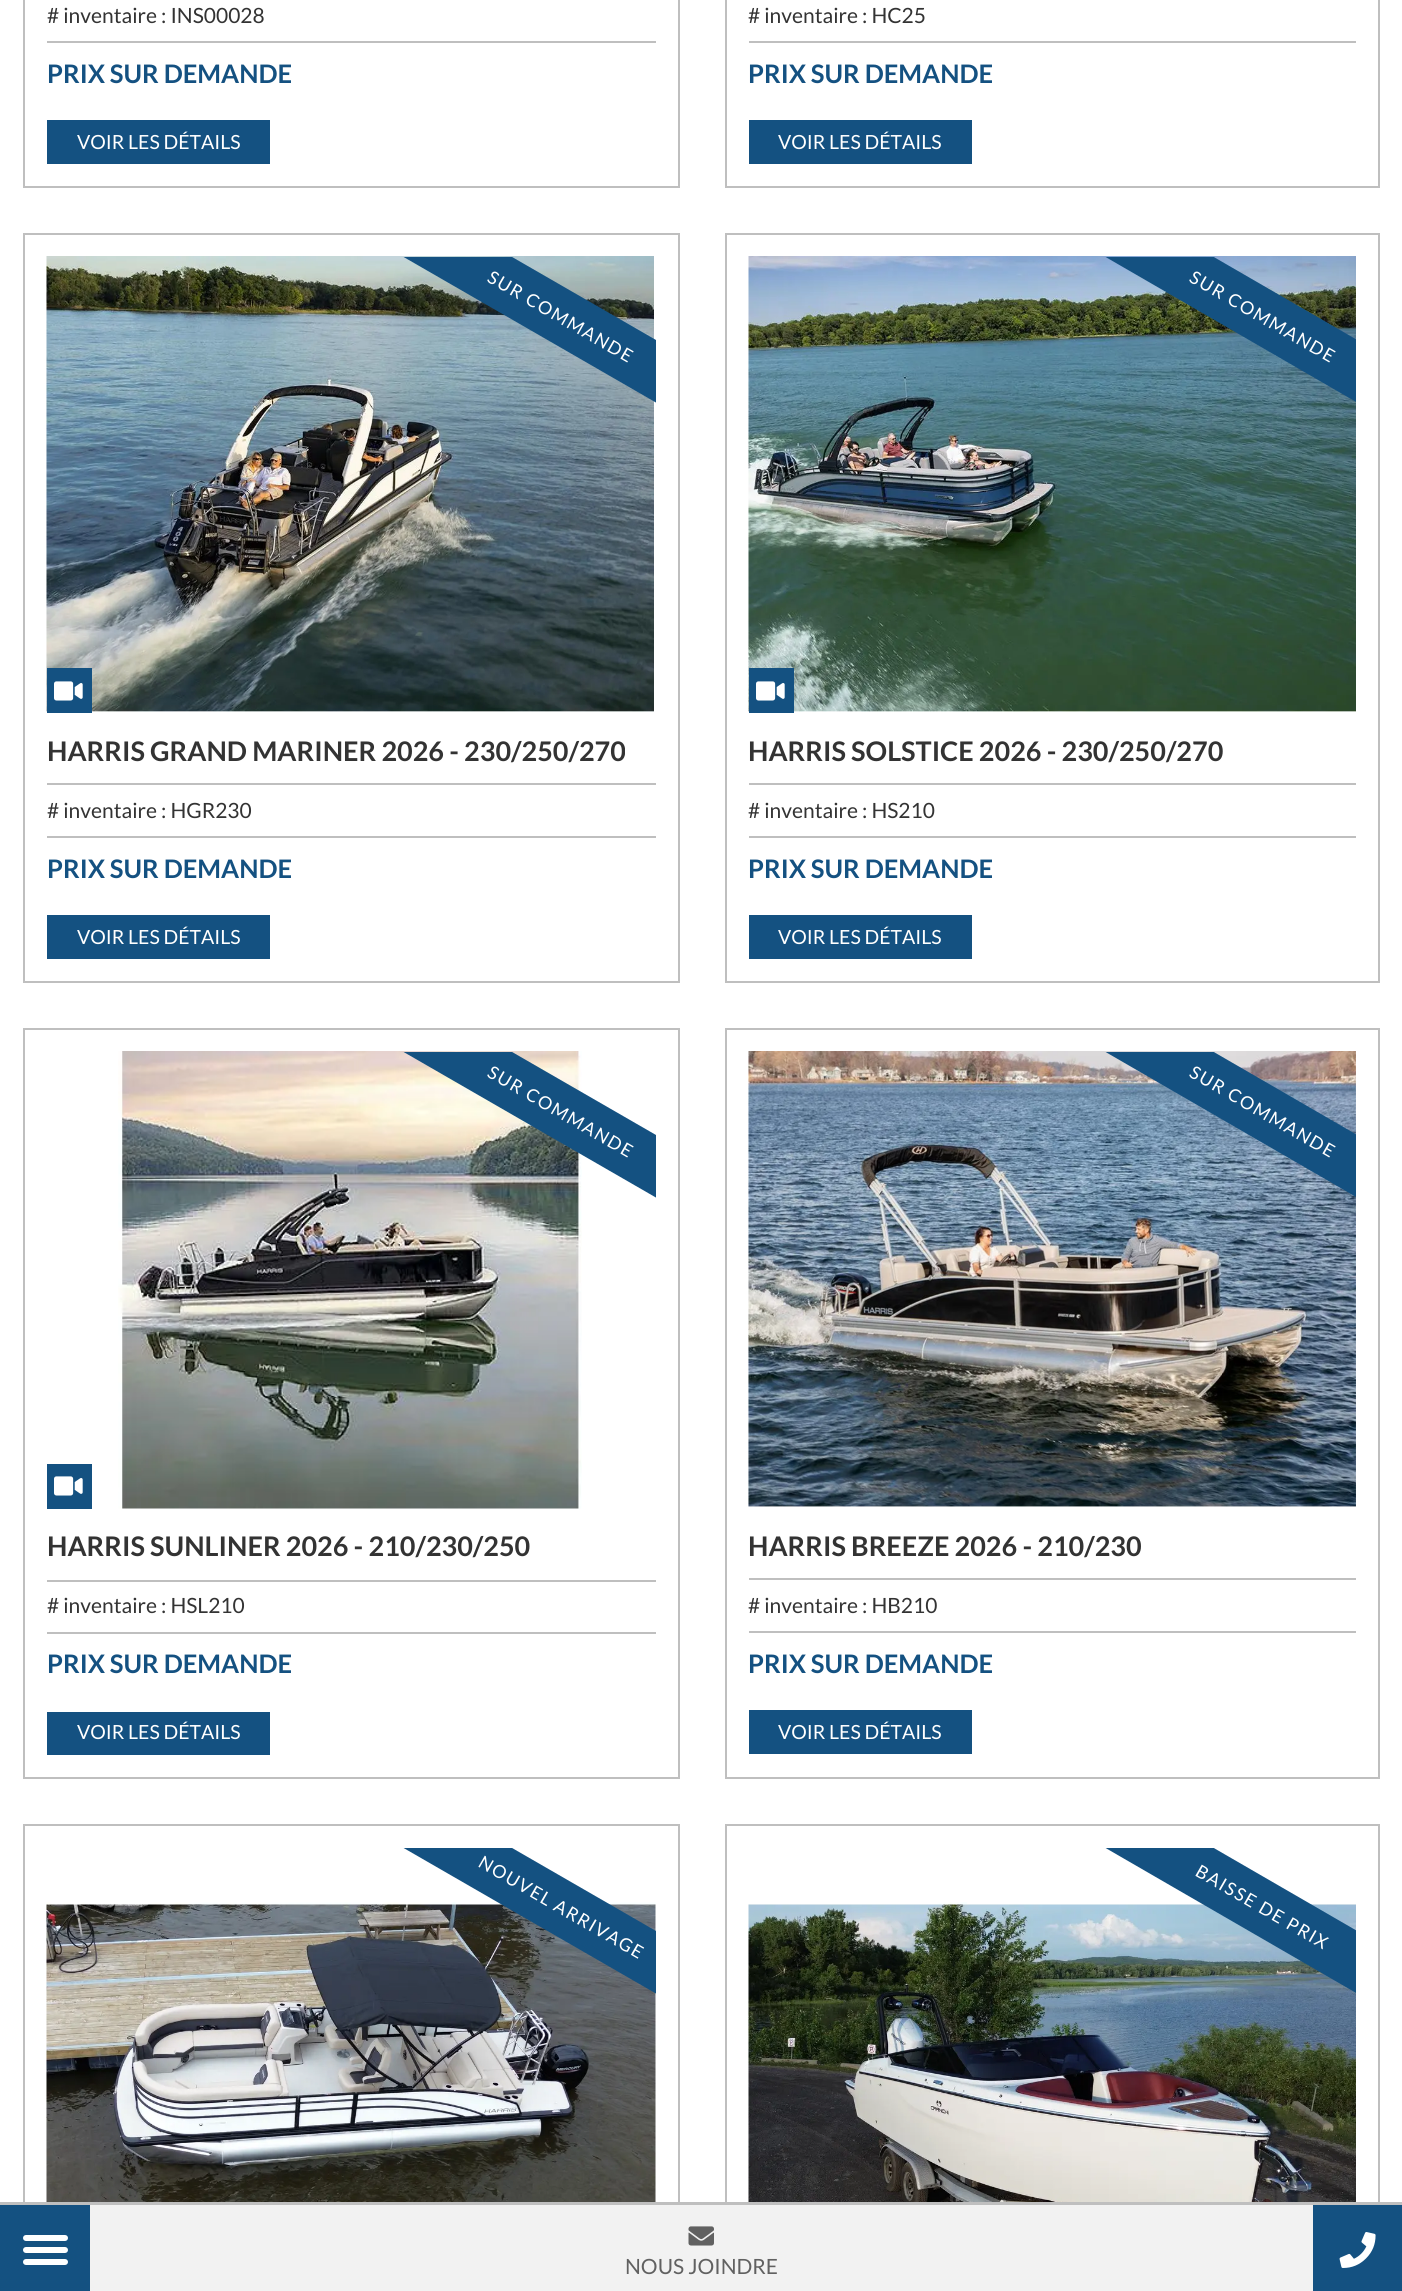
#include <cairo.h>
#include <math.h>
#include <stddef.h>

static cairo_t *ctx;

static void use_color(int r, int g, int b) {
    cairo_set_source_rgb(ctx, r / 255.0, g / 255.0, b / 255.0);
}

static void spaced_text(double x, double y, const char *s, double letter, double word) {
    cairo_move_to(ctx, x, y);
    while (*s) {
        char ch[5] = {0};
        int n = 0;
        do ch[n++] = *s++; while ((*s & 0xC0) == 0x80);
        cairo_show_text(ctx, ch);
        cairo_rel_move_to(ctx, letter + word * (*ch == ' '), 0);
    }
}

static void round_rect(double x, double y, double w, double h, double r) {
    cairo_new_sub_path(ctx);
    cairo_arc(ctx, x + w - r, y + h - r, r, 0, M_PI / 2);
    cairo_arc(ctx, x + r, y + h - r, r, M_PI / 2, M_PI);
    cairo_arc(ctx, x + r, y + r, r, M_PI, 1.5 * M_PI);
    cairo_arc(ctx, x + w - r, y + r, r, 1.5 * M_PI, 2 * M_PI);
    cairo_close_path(ctx);
}

static void picture(const char *path, double x, double y, double w, double h) {
    cairo_surface_t *image = cairo_image_surface_create_from_png(path);
    cairo_save(ctx);
    cairo_set_source_surface(ctx, image, x, y);
    cairo_rectangle(ctx, x, y, w, h);
    cairo_fill(ctx);
    cairo_restore(ctx);
    cairo_surface_destroy(image);
}

int main(void) {
    cairo_surface_t *surface = cairo_image_surface_create(CAIRO_FORMAT_RGB24, 1402, 2291);
    ctx = cairo_create(surface);
    cairo_font_options_t *options = cairo_font_options_create();
    cairo_font_options_set_hint_metrics(options, CAIRO_HINT_METRICS_OFF);
    cairo_font_options_set_hint_style(options, CAIRO_HINT_STYLE_NONE);
    cairo_set_font_options(ctx, options);
    cairo_set_miter_limit(ctx, 4);
    use_color(255, 255, 255);
    cairo_paint(ctx);
    cairo_rectangle(ctx, 24, -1, 655, 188);
    use_color(191, 191, 191);
    cairo_stroke(ctx);
    cairo_select_font_face(ctx, "Lato", CAIRO_FONT_SLANT_NORMAL, CAIRO_FONT_WEIGHT_NORMAL);
    cairo_set_font_size(ctx, 21);
    use_color(51, 51, 51);
    cairo_move_to(ctx, 47, 23);
    cairo_show_text(ctx, "# inventaire : INS00028");
    use_color(191, 191, 191);
    cairo_rectangle(ctx, 47, 41, 609, 2);
    cairo_fill(ctx);
    cairo_select_font_face(ctx, "Lato", CAIRO_FONT_SLANT_NORMAL, CAIRO_FONT_WEIGHT_BOLD);
    cairo_set_font_size(ctx, 25.5);
    use_color(20, 81, 129);
    cairo_move_to(ctx, 47, 83);
    cairo_show_text(ctx, "PRIX SUR DEMANDE");
    cairo_rectangle(ctx, 47, 120, 223, 44);
    cairo_fill(ctx);
    cairo_select_font_face(ctx, "Lato", CAIRO_FONT_SLANT_NORMAL, CAIRO_FONT_WEIGHT_NORMAL);
    cairo_set_font_size(ctx, 19.5);
    use_color(255, 255, 255);
    cairo_move_to(ctx, 77, 149);
    cairo_show_text(ctx, "VOIR LES DÉTAILS");
    cairo_rectangle(ctx, 726, -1, 653, 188);
    use_color(191, 191, 191);
    cairo_stroke(ctx);
    cairo_set_font_size(ctx, 21);
    use_color(51, 51, 51);
    cairo_move_to(ctx, 748, 23);
    cairo_show_text(ctx, "# inventaire : HC25");
    use_color(191, 191, 191);
    cairo_rectangle(ctx, 749, 41, 607, 2);
    cairo_fill(ctx);
    cairo_select_font_face(ctx, "Lato", CAIRO_FONT_SLANT_NORMAL, CAIRO_FONT_WEIGHT_BOLD);
    cairo_set_font_size(ctx, 25.5);
    use_color(20, 81, 129);
    cairo_move_to(ctx, 748, 83);
    cairo_show_text(ctx, "PRIX SUR DEMANDE");
    cairo_rectangle(ctx, 749, 120, 223, 44);
    cairo_fill(ctx);
    cairo_select_font_face(ctx, "Lato", CAIRO_FONT_SLANT_NORMAL, CAIRO_FONT_WEIGHT_NORMAL);
    cairo_set_font_size(ctx, 19.5);
    use_color(255, 255, 255);
    cairo_move_to(ctx, 778, 149);
    cairo_show_text(ctx, "VOIR LES DÉTAILS");
    cairo_rectangle(ctx, 24, 234, 655, 748);
    use_color(191, 191, 191);
    cairo_stroke(ctx);
    picture("img1.png", 46, 256, 608, 456);
    cairo_save(ctx);
    cairo_rectangle(ctx, 393, 257, 263, 180);
    cairo_clip(ctx);
    use_color(20, 81, 129);
    cairo_new_path(ctx);
    cairo_move_to(ctx, 415, 201);
    cairo_line_to(ctx, 734, 385);
    cairo_line_to(ctx, 707, 432);
    cairo_line_to(ctx, 388, 248);
    cairo_close_path(ctx);
    cairo_fill(ctx);
    cairo_restore(ctx);
    cairo_set_font_size(ctx, 18);
    use_color(255, 255, 255);
    cairo_save(ctx);
    cairo_translate(ctx, 486, 281);
    cairo_rotate(ctx, 30 * M_PI / 180);
    spaced_text(0, 0, "SUR COMMANDE", 1.5, 0);
    cairo_restore(ctx);
    use_color(20, 81, 129);
    cairo_rectangle(ctx, 47, 668, 45, 45);
    cairo_fill(ctx);
    picture("img2.png", 54, 681, 29, 20);
    cairo_select_font_face(ctx, "Lato", CAIRO_FONT_SLANT_NORMAL, CAIRO_FONT_WEIGHT_BOLD);
    cairo_set_font_size(ctx, 27);
    use_color(51, 51, 51);
    cairo_move_to(ctx, 47, 761);
    cairo_show_text(ctx, "HARRIS GRAND MARINER 2026 - 230/250/270");
    use_color(191, 191, 191);
    cairo_rectangle(ctx, 47, 783, 609, 2);
    cairo_fill(ctx);
    cairo_select_font_face(ctx, "Lato", CAIRO_FONT_SLANT_NORMAL, CAIRO_FONT_WEIGHT_NORMAL);
    cairo_set_font_size(ctx, 21);
    use_color(51, 51, 51);
    cairo_move_to(ctx, 47, 818);
    cairo_show_text(ctx, "# inventaire : HGR230");
    use_color(191, 191, 191);
    cairo_rectangle(ctx, 47, 836, 609, 2);
    cairo_fill(ctx);
    cairo_select_font_face(ctx, "Lato", CAIRO_FONT_SLANT_NORMAL, CAIRO_FONT_WEIGHT_BOLD);
    cairo_set_font_size(ctx, 25.5);
    use_color(20, 81, 129);
    cairo_move_to(ctx, 47, 878);
    cairo_show_text(ctx, "PRIX SUR DEMANDE");
    cairo_rectangle(ctx, 47, 915, 223, 44);
    cairo_fill(ctx);
    cairo_select_font_face(ctx, "Lato", CAIRO_FONT_SLANT_NORMAL, CAIRO_FONT_WEIGHT_NORMAL);
    cairo_set_font_size(ctx, 19.5);
    use_color(255, 255, 255);
    cairo_move_to(ctx, 77, 944);
    cairo_show_text(ctx, "VOIR LES DÉTAILS");
    cairo_rectangle(ctx, 726, 234, 653, 748);
    use_color(191, 191, 191);
    cairo_stroke(ctx);
    picture("img3.png", 748, 256, 608, 456);
    cairo_save(ctx);
    cairo_rectangle(ctx, 1094, 257, 262, 180);
    cairo_clip(ctx);
    use_color(20, 81, 129);
    cairo_new_path(ctx);
    cairo_move_to(ctx, 1117, 201);
    cairo_line_to(ctx, 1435, 385);
    cairo_line_to(ctx, 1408, 432);
    cairo_line_to(ctx, 1090, 248);
    cairo_close_path(ctx);
    cairo_fill(ctx);
    cairo_restore(ctx);
    cairo_set_font_size(ctx, 18);
    use_color(255, 255, 255);
    cairo_save(ctx);
    cairo_translate(ctx, 1188, 281);
    cairo_rotate(ctx, 30 * M_PI / 180);
    spaced_text(0, 0, "SUR COMMANDE", 1.5, 0);
    cairo_restore(ctx);
    use_color(20, 81, 129);
    cairo_rectangle(ctx, 749, 668, 45, 45);
    cairo_fill(ctx);
    picture("img2.png", 756, 681, 29, 20);
    cairo_select_font_face(ctx, "Lato", CAIRO_FONT_SLANT_NORMAL, CAIRO_FONT_WEIGHT_BOLD);
    cairo_set_font_size(ctx, 27);
    use_color(51, 51, 51);
    cairo_move_to(ctx, 748, 761);
    cairo_show_text(ctx, "HARRIS SOLSTICE 2026 - 230/250/270");
    use_color(191, 191, 191);
    cairo_rectangle(ctx, 749, 783, 607, 2);
    cairo_fill(ctx);
    cairo_select_font_face(ctx, "Lato", CAIRO_FONT_SLANT_NORMAL, CAIRO_FONT_WEIGHT_NORMAL);
    cairo_set_font_size(ctx, 21);
    use_color(51, 51, 51);
    cairo_move_to(ctx, 748, 818);
    cairo_show_text(ctx, "# inventaire : HS210");
    use_color(191, 191, 191);
    cairo_rectangle(ctx, 749, 836, 607, 2);
    cairo_fill(ctx);
    cairo_select_font_face(ctx, "Lato", CAIRO_FONT_SLANT_NORMAL, CAIRO_FONT_WEIGHT_BOLD);
    cairo_set_font_size(ctx, 25.5);
    use_color(20, 81, 129);
    cairo_move_to(ctx, 748, 878);
    cairo_show_text(ctx, "PRIX SUR DEMANDE");
    cairo_rectangle(ctx, 749, 915, 223, 44);
    cairo_fill(ctx);
    cairo_select_font_face(ctx, "Lato", CAIRO_FONT_SLANT_NORMAL, CAIRO_FONT_WEIGHT_NORMAL);
    cairo_set_font_size(ctx, 19.5);
    use_color(255, 255, 255);
    cairo_move_to(ctx, 778, 944);
    cairo_show_text(ctx, "VOIR LES DÉTAILS");
    cairo_rectangle(ctx, 24, 1029, 655, 749);
    use_color(191, 191, 191);
    cairo_stroke(ctx);
    picture("img4.png", 118, 1051, 464, 458);
    cairo_save(ctx);
    cairo_rectangle(ctx, 393, 1052, 263, 180);
    cairo_clip(ctx);
    use_color(20, 81, 129);
    cairo_new_path(ctx);
    cairo_move_to(ctx, 415, 996);
    cairo_line_to(ctx, 734, 1180);
    cairo_line_to(ctx, 707, 1227);
    cairo_line_to(ctx, 388, 1043);
    cairo_close_path(ctx);
    cairo_fill(ctx);
    cairo_restore(ctx);
    cairo_set_font_size(ctx, 18);
    use_color(255, 255, 255);
    cairo_save(ctx);
    cairo_translate(ctx, 486, 1076);
    cairo_rotate(ctx, 30 * M_PI / 180);
    spaced_text(0, 0, "SUR COMMANDE", 1.5, 0);
    cairo_restore(ctx);
    use_color(20, 81, 129);
    cairo_rectangle(ctx, 47, 1464, 45, 45);
    cairo_fill(ctx);
    picture("img2.png", 54, 1476, 29, 20);
    cairo_select_font_face(ctx, "Lato", CAIRO_FONT_SLANT_NORMAL, CAIRO_FONT_WEIGHT_BOLD);
    cairo_set_font_size(ctx, 27);
    use_color(51, 51, 51);
    cairo_move_to(ctx, 47, 1556);
    cairo_show_text(ctx, "HARRIS SUNLINER 2026 - 210/230/250");
    use_color(191, 191, 191);
    cairo_rectangle(ctx, 47, 1580, 609, 2);
    cairo_fill(ctx);
    cairo_select_font_face(ctx, "Lato", CAIRO_FONT_SLANT_NORMAL, CAIRO_FONT_WEIGHT_NORMAL);
    cairo_set_font_size(ctx, 21);
    use_color(51, 51, 51);
    cairo_move_to(ctx, 47, 1613);
    cairo_show_text(ctx, "# inventaire : HSL210");
    use_color(191, 191, 191);
    cairo_rectangle(ctx, 47, 1632, 609, 2);
    cairo_fill(ctx);
    cairo_select_font_face(ctx, "Lato", CAIRO_FONT_SLANT_NORMAL, CAIRO_FONT_WEIGHT_BOLD);
    cairo_set_font_size(ctx, 25.5);
    use_color(20, 81, 129);
    cairo_move_to(ctx, 47, 1673);
    cairo_show_text(ctx, "PRIX SUR DEMANDE");
    cairo_rectangle(ctx, 47, 1712, 223, 43);
    cairo_fill(ctx);
    cairo_select_font_face(ctx, "Lato", CAIRO_FONT_SLANT_NORMAL, CAIRO_FONT_WEIGHT_NORMAL);
    cairo_set_font_size(ctx, 19.5);
    use_color(255, 255, 255);
    cairo_move_to(ctx, 77, 1739);
    cairo_show_text(ctx, "VOIR LES DÉTAILS");
    cairo_rectangle(ctx, 726, 1029, 653, 749);
    use_color(191, 191, 191);
    cairo_stroke(ctx);
    picture("img5.png", 748, 1051, 608, 456);
    cairo_save(ctx);
    cairo_rectangle(ctx, 1094, 1052, 262, 180);
    cairo_clip(ctx);
    use_color(20, 81, 129);
    cairo_new_path(ctx);
    cairo_move_to(ctx, 1117, 996);
    cairo_line_to(ctx, 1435, 1180);
    cairo_line_to(ctx, 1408, 1227);
    cairo_line_to(ctx, 1090, 1043);
    cairo_close_path(ctx);
    cairo_fill(ctx);
    cairo_restore(ctx);
    cairo_set_font_size(ctx, 18);
    use_color(255, 255, 255);
    cairo_save(ctx);
    cairo_translate(ctx, 1188, 1076);
    cairo_rotate(ctx, 30 * M_PI / 180);
    spaced_text(0, 0, "SUR COMMANDE", 1.5, 0);
    cairo_restore(ctx);
    cairo_select_font_face(ctx, "Lato", CAIRO_FONT_SLANT_NORMAL, CAIRO_FONT_WEIGHT_BOLD);
    cairo_set_font_size(ctx, 27);
    use_color(51, 51, 51);
    cairo_move_to(ctx, 748, 1556);
    cairo_show_text(ctx, "HARRIS BREEZE 2026 - 210/230");
    use_color(191, 191, 191);
    cairo_rectangle(ctx, 749, 1578, 607, 2);
    cairo_fill(ctx);
    cairo_select_font_face(ctx, "Lato", CAIRO_FONT_SLANT_NORMAL, CAIRO_FONT_WEIGHT_NORMAL);
    cairo_set_font_size(ctx, 21);
    use_color(51, 51, 51);
    cairo_move_to(ctx, 748, 1613);
    cairo_show_text(ctx, "# inventaire : HB210");
    use_color(191, 191, 191);
    cairo_rectangle(ctx, 749, 1631, 607, 2);
    cairo_fill(ctx);
    cairo_select_font_face(ctx, "Lato", CAIRO_FONT_SLANT_NORMAL, CAIRO_FONT_WEIGHT_BOLD);
    cairo_set_font_size(ctx, 25.5);
    use_color(20, 81, 129);
    cairo_move_to(ctx, 748, 1673);
    cairo_show_text(ctx, "PRIX SUR DEMANDE");
    cairo_rectangle(ctx, 749, 1710, 223, 44);
    cairo_fill(ctx);
    cairo_select_font_face(ctx, "Lato", CAIRO_FONT_SLANT_NORMAL, CAIRO_FONT_WEIGHT_NORMAL);
    cairo_set_font_size(ctx, 19.5);
    use_color(255, 255, 255);
    cairo_move_to(ctx, 778, 1739);
    cairo_show_text(ctx, "VOIR LES DÉTAILS");
    cairo_rectangle(ctx, 24, 1825, 655, 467);
    use_color(191, 191, 191);
    cairo_stroke(ctx);
    picture("img6.png", 46, 1902, 610, 300);
    cairo_save(ctx);
    cairo_rectangle(ctx, 393, 1848, 263, 180);
    cairo_clip(ctx);
    use_color(20, 81, 129);
    cairo_new_path(ctx);
    cairo_move_to(ctx, 415, 1792);
    cairo_line_to(ctx, 734, 1976);
    cairo_line_to(ctx, 707, 2023);
    cairo_line_to(ctx, 388, 1839);
    cairo_close_path(ctx);
    cairo_fill(ctx);
    cairo_restore(ctx);
    cairo_set_font_size(ctx, 18);
    use_color(255, 255, 255);
    cairo_save(ctx);
    cairo_translate(ctx, 477, 1866);
    cairo_rotate(ctx, 30 * M_PI / 180);
    spaced_text(0, 0, "NOUVEL ARRIVAGE", 1.5, 0);
    cairo_restore(ctx);
    cairo_rectangle(ctx, 726, 1825, 653, 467);
    use_color(191, 191, 191);
    cairo_stroke(ctx);
    picture("img7.png", 748, 1902, 608, 300);
    cairo_save(ctx);
    cairo_rectangle(ctx, 1094, 1848, 262, 180);
    cairo_clip(ctx);
    use_color(20, 81, 129);
    cairo_new_path(ctx);
    cairo_move_to(ctx, 1117, 1792);
    cairo_line_to(ctx, 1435, 1976);
    cairo_line_to(ctx, 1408, 2023);
    cairo_line_to(ctx, 1090, 1839);
    cairo_close_path(ctx);
    cairo_fill(ctx);
    cairo_restore(ctx);
    use_color(255, 255, 255);
    cairo_save(ctx);
    cairo_translate(ctx, 1194, 1875);
    cairo_rotate(ctx, 30 * M_PI / 180);
    spaced_text(0, 0, "BAISSE DE PRIX", 1.5, 0);
    cairo_restore(ctx);
    use_color(242, 242, 242);
    cairo_rectangle(ctx, 90, 2205, 1223, 86);
    cairo_fill(ctx);
    use_color(191, 191, 191);
    cairo_rectangle(ctx, 0, 2202, 1402, 3);
    cairo_fill(ctx);
    use_color(20, 81, 129);
    cairo_rectangle(ctx, 0, 2205, 90, 86);
    cairo_fill(ctx);
    use_color(255, 255, 255);
    round_rect(23, 2247, 45, 6, 3);
    cairo_fill(ctx);
    round_rect(23, 2235, 45, 6, 3);
    cairo_fill(ctx);
    round_rect(23, 2259, 45, 6, 3);
    cairo_fill(ctx);
    picture("img8.png", 688, 2226, 26, 20);
    cairo_set_font_size(ctx, 21);
    use_color(97, 97, 97);
    cairo_move_to(ctx, 625, 2274);
    cairo_show_text(ctx, "NOUS JOINDRE");
    use_color(20, 81, 129);
    cairo_rectangle(ctx, 1313, 2205, 89, 86);
    cairo_fill(ctx);
    picture("img9.png", 1339, 2232, 37, 36);
    cairo_surface_write_to_png(surface, "result.png");
    cairo_font_options_destroy(options);
    cairo_destroy(ctx);
    cairo_surface_destroy(surface);
    return 0;
}
